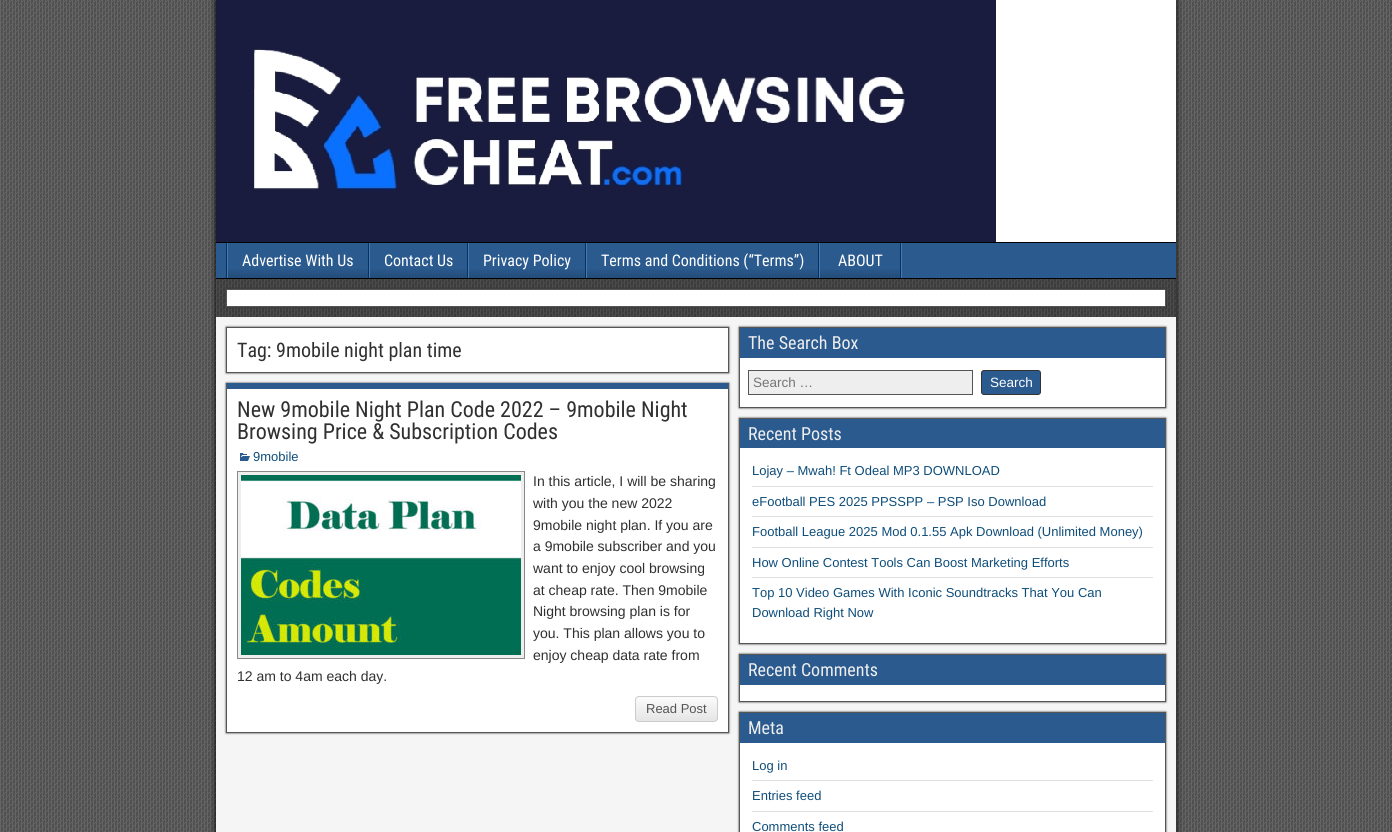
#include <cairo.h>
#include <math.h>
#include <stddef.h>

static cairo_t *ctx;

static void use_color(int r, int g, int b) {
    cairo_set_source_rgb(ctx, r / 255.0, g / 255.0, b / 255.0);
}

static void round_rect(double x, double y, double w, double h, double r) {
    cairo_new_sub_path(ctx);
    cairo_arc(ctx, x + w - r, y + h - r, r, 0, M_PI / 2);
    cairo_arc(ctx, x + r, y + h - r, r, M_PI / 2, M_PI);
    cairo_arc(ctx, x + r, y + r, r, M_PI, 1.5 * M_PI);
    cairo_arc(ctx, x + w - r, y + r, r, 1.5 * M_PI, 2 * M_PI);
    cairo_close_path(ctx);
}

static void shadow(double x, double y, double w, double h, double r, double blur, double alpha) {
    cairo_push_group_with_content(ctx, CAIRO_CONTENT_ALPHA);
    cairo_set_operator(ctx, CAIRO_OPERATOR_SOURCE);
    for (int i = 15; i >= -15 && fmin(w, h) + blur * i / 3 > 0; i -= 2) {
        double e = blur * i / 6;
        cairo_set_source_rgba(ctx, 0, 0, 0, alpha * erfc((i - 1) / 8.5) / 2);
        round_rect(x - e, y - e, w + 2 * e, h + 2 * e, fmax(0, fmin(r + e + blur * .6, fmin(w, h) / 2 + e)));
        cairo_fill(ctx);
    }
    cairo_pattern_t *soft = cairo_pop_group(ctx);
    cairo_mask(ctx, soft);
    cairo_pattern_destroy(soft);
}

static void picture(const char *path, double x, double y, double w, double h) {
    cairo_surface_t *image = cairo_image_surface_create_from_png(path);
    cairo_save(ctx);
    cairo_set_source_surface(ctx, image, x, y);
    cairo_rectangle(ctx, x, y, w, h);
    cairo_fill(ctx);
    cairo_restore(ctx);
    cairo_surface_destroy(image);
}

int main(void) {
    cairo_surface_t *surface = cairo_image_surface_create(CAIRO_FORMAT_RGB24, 1392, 832);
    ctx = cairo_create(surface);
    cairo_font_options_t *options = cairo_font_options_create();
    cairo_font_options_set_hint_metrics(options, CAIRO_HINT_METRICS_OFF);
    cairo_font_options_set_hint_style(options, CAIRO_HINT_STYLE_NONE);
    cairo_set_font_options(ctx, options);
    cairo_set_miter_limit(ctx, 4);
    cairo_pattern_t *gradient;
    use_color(80, 80, 80);
    cairo_paint(ctx);
    picture("img1.png", 0, 0, 1392, 832);
    cairo_save(ctx);
    cairo_set_fill_rule(ctx, CAIRO_FILL_RULE_EVEN_ODD);
    cairo_new_path(ctx);
    cairo_move_to(ctx, 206, 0);
    cairo_line_to(ctx, 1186, 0);
    cairo_line_to(ctx, 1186, 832);
    cairo_line_to(ctx, 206, 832);
    cairo_close_path(ctx);
    cairo_move_to(ctx, 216, 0);
    cairo_line_to(ctx, 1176, 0);
    cairo_line_to(ctx, 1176, 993);
    cairo_line_to(ctx, 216, 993);
    cairo_close_path(ctx);
    cairo_clip(ctx);
    use_color(0, 0, 0);
    shadow(216, 0, 960, 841, 0, 3, 1);
    cairo_restore(ctx);
    use_color(255, 255, 255);
    cairo_rectangle(ctx, 996, 0, 180, 242);
    cairo_fill(ctx);
    use_color(0, 0, 0);
    cairo_rectangle(ctx, 216, 242, 960, 1);
    cairo_fill(ctx);
    picture("img2.png", 216, 0, 780, 242);
    use_color(42, 90, 142);
    cairo_rectangle(ctx, 216, 243, 960, 35);
    cairo_fill(ctx);
    use_color(0, 0, 0);
    cairo_rectangle(ctx, 216, 278, 960, 1);
    cairo_fill(ctx);
    use_color(72, 120, 172);
    cairo_rectangle(ctx, 901, 243, 1, 35);
    cairo_fill(ctx);
    use_color(2, 50, 102);
    cairo_rectangle(ctx, 226, 243, 1, 35);
    cairo_fill(ctx);
    gradient = cairo_pattern_create_linear(298, 243, 298, 278);
    cairo_pattern_add_color_stop_rgba(gradient, 0.7, 0.165, 0.353, 0.557, 1);
    cairo_pattern_add_color_stop_rgba(gradient, 1, 0.141, 0.302, 0.475, 1);
    cairo_set_source(ctx, gradient);
    cairo_pattern_destroy(gradient);
    cairo_rectangle(ctx, 228, 269, 140, 9);
    cairo_fill(ctx);
    use_color(2, 50, 102);
    cairo_rectangle(ctx, 368, 243, 1, 35);
    cairo_fill(ctx);
    use_color(72, 120, 172);
    cairo_rectangle(ctx, 227, 243, 1, 35);
    cairo_fill(ctx);
    cairo_select_font_face(ctx, "Roboto Condensed", CAIRO_FONT_SLANT_NORMAL, CAIRO_FONT_WEIGHT_NORMAL);
    cairo_set_font_size(ctx, 16);
    use_color(255, 255, 255);
    cairo_move_to(ctx, 242, 266);
    cairo_show_text(ctx, "Advertise With Us");
    gradient = cairo_pattern_create_linear(419, 243, 419, 278);
    cairo_pattern_add_color_stop_rgba(gradient, 0.7, 0.165, 0.353, 0.557, 1);
    cairo_pattern_add_color_stop_rgba(gradient, 1, 0.141, 0.302, 0.475, 1);
    cairo_set_source(ctx, gradient);
    cairo_pattern_destroy(gradient);
    cairo_rectangle(ctx, 370, 269, 97, 9);
    cairo_fill(ctx);
    use_color(2, 50, 102);
    cairo_rectangle(ctx, 467, 243, 1, 35);
    cairo_fill(ctx);
    use_color(72, 120, 172);
    cairo_rectangle(ctx, 369, 243, 1, 35);
    cairo_fill(ctx);
    use_color(255, 255, 255);
    cairo_move_to(ctx, 384, 266);
    cairo_show_text(ctx, "Contact Us");
    gradient = cairo_pattern_create_linear(527, 243, 527, 278);
    cairo_pattern_add_color_stop_rgba(gradient, 0.7, 0.165, 0.353, 0.557, 1);
    cairo_pattern_add_color_stop_rgba(gradient, 1, 0.141, 0.302, 0.475, 1);
    cairo_set_source(ctx, gradient);
    cairo_pattern_destroy(gradient);
    cairo_rectangle(ctx, 469, 269, 116, 9);
    cairo_fill(ctx);
    use_color(2, 50, 102);
    cairo_rectangle(ctx, 585, 243, 1, 35);
    cairo_fill(ctx);
    use_color(72, 120, 172);
    cairo_rectangle(ctx, 468, 243, 1, 35);
    cairo_fill(ctx);
    use_color(255, 255, 255);
    cairo_move_to(ctx, 483, 266);
    cairo_show_text(ctx, "Privacy Policy");
    gradient = cairo_pattern_create_linear(703, 243, 703, 278);
    cairo_pattern_add_color_stop_rgba(gradient, 0.7, 0.165, 0.353, 0.557, 1);
    cairo_pattern_add_color_stop_rgba(gradient, 1, 0.141, 0.302, 0.475, 1);
    cairo_set_source(ctx, gradient);
    cairo_pattern_destroy(gradient);
    cairo_rectangle(ctx, 587, 269, 231, 9);
    cairo_fill(ctx);
    use_color(2, 50, 102);
    cairo_rectangle(ctx, 818, 243, 1, 35);
    cairo_fill(ctx);
    use_color(72, 120, 172);
    cairo_rectangle(ctx, 586, 243, 1, 35);
    cairo_fill(ctx);
    use_color(255, 255, 255);
    cairo_move_to(ctx, 601, 266);
    cairo_show_text(ctx, "Terms and Conditions (“Terms”)");
    gradient = cairo_pattern_create_linear(860, 243, 860, 278);
    cairo_pattern_add_color_stop_rgba(gradient, 0.7, 0.165, 0.353, 0.557, 1);
    cairo_pattern_add_color_stop_rgba(gradient, 1, 0.141, 0.302, 0.475, 1);
    cairo_set_source(ctx, gradient);
    cairo_pattern_destroy(gradient);
    cairo_rectangle(ctx, 820, 269, 80, 9);
    cairo_fill(ctx);
    use_color(2, 50, 102);
    cairo_rectangle(ctx, 900, 243, 1, 35);
    cairo_fill(ctx);
    use_color(72, 120, 172);
    cairo_rectangle(ctx, 819, 243, 1, 35);
    cairo_fill(ctx);
    use_color(255, 255, 255);
    cairo_move_to(ctx, 838, 266);
    cairo_show_text(ctx, "ABOUT");
    cairo_set_source_rgba(ctx, 0, 0, 0, 0.25);
    cairo_rectangle(ctx, 216, 279, 960, 38);
    cairo_fill(ctx);
    use_color(51, 51, 51);
    shadow(226, 289, 940, 18, 0, 1, 1);
    use_color(255, 255, 255);
    cairo_rectangle(ctx, 226.5, 289.5, 939, 17);
    cairo_fill_preserve(ctx);
    use_color(85, 85, 85);
    cairo_set_line_width(ctx, 1);
    cairo_stroke(ctx);
    use_color(245, 245, 245);
    cairo_rectangle(ctx, 216, 317, 960, 515);
    cairo_fill(ctx);
    use_color(51, 51, 51);
    shadow(226, 327, 503, 46, 0, 1, 1);
    use_color(255, 255, 255);
    cairo_rectangle(ctx, 226.5, 327.5, 502, 45);
    cairo_fill_preserve(ctx);
    use_color(85, 85, 85);
    cairo_stroke(ctx);
    cairo_set_font_size(ctx, 20);
    use_color(48, 48, 48);
    cairo_move_to(ctx, 237, 357);
    cairo_show_text(ctx, "Tag: 9mobile night plan time");
    use_color(51, 51, 51);
    shadow(226, 383, 503, 350, 0, 1, 1);
    use_color(255, 255, 255);
    cairo_rectangle(ctx, 227, 389, 501, 343);
    cairo_fill(ctx);
    use_color(42, 90, 142);
    cairo_new_path(ctx);
    cairo_move_to(ctx, 226, 383);
    cairo_line_to(ctx, 729, 383);
    cairo_line_to(ctx, 728, 389);
    cairo_line_to(ctx, 227, 389);
    cairo_close_path(ctx);
    cairo_fill(ctx);
    use_color(85, 85, 85);
    cairo_new_path(ctx);
    cairo_move_to(ctx, 729, 383);
    cairo_line_to(ctx, 729, 733);
    cairo_line_to(ctx, 728, 732);
    cairo_line_to(ctx, 728, 389);
    cairo_close_path(ctx);
    cairo_fill(ctx);
    cairo_rectangle(ctx, 226, 732, 503, 1);
    cairo_fill(ctx);
    cairo_new_path(ctx);
    cairo_move_to(ctx, 226, 733);
    cairo_line_to(ctx, 226, 383);
    cairo_line_to(ctx, 227, 389);
    cairo_line_to(ctx, 227, 732);
    cairo_close_path(ctx);
    cairo_fill(ctx);
    cairo_set_font_size(ctx, 22);
    use_color(48, 48, 48);
    cairo_move_to(ctx, 237, 417);
    cairo_show_text(ctx, "New 9mobile Night Plan Code 2022 – 9mobile Night");
    cairo_move_to(ctx, 237, 439);
    cairo_show_text(ctx, "Browsing Price & Subscription Codes");
    picture("img3.png", 240, 453, 10, 8);
    cairo_select_font_face(ctx, "Liberation Sans", CAIRO_FONT_SLANT_NORMAL, CAIRO_FONT_WEIGHT_NORMAL);
    cairo_set_font_size(ctx, 13);
    use_color(14, 77, 122);
    cairo_move_to(ctx, 253, 461);
    cairo_show_text(ctx, "9mobile");
    use_color(238, 238, 238);
    cairo_rectangle(ctx, 237.5, 471.5, 287, 187);
    cairo_fill_preserve(ctx);
    use_color(136, 136, 136);
    cairo_stroke(ctx);
    picture("img4.png", 241, 475, 280, 180);
    cairo_select_font_face(ctx, "Arimo", CAIRO_FONT_SLANT_NORMAL, CAIRO_FONT_WEIGHT_NORMAL);
    cairo_set_font_size(ctx, 14);
    use_color(48, 48, 48);
    cairo_move_to(ctx, 533, 486);
    cairo_show_text(ctx, "In this article, I will be sharing");
    cairo_move_to(ctx, 533, 508);
    cairo_show_text(ctx, "with you the new 2022");
    cairo_move_to(ctx, 533, 530);
    cairo_show_text(ctx, "9mobile night plan. If you are");
    cairo_move_to(ctx, 533, 551);
    cairo_show_text(ctx, "a 9mobile subscriber and you");
    cairo_move_to(ctx, 533, 573);
    cairo_show_text(ctx, "want to enjoy cool browsing");
    cairo_move_to(ctx, 533, 595);
    cairo_show_text(ctx, "at cheap rate. Then 9mobile");
    cairo_move_to(ctx, 533, 616);
    cairo_show_text(ctx, "Night browsing plan is for");
    cairo_move_to(ctx, 533, 638);
    cairo_show_text(ctx, "you. This plan allows you to");
    cairo_move_to(ctx, 533, 660);
    cairo_show_text(ctx, "enjoy cheap data rate from");
    cairo_move_to(ctx, 237, 681);
    cairo_show_text(ctx, "12 am to 4am each day.");
    cairo_save(ctx);
    round_rect(635, 696, 83, 26, 4);
    cairo_clip(ctx);
    gradient = cairo_pattern_create_linear(677, 697, 677, 721);
    cairo_pattern_add_color_stop_rgba(gradient, 0, 0.984, 0.984, 0.984, 1);
    cairo_pattern_add_color_stop_rgba(gradient, 1, 0.898, 0.898, 0.898, 1);
    cairo_set_source(ctx, gradient);
    cairo_pattern_destroy(gradient);
    cairo_rectangle(ctx, 635, 697, 83, 24);
    cairo_fill(ctx);
    cairo_restore(ctx);
    round_rect(635.5, 696.5, 82, 25, 3.5);
    use_color(204, 204, 204);
    cairo_stroke(ctx);
    cairo_select_font_face(ctx, "Liberation Sans", CAIRO_FONT_SLANT_NORMAL, CAIRO_FONT_WEIGHT_NORMAL);
    cairo_set_font_size(ctx, 13);
    use_color(85, 85, 85);
    cairo_move_to(ctx, 646, 713);
    cairo_show_text(ctx, "Read Post");
    use_color(51, 51, 51);
    shadow(739, 327, 427, 81, 0, 1, 1);
    use_color(255, 255, 255);
    cairo_rectangle(ctx, 740, 358, 425, 49);
    cairo_fill(ctx);
    cairo_rectangle(ctx, 739.5, 327.5, 426, 80);
    use_color(85, 85, 85);
    cairo_stroke(ctx);
    use_color(42, 90, 142);
    cairo_rectangle(ctx, 740, 328, 425, 30);
    cairo_fill(ctx);
    cairo_select_font_face(ctx, "Roboto Condensed", CAIRO_FONT_SLANT_NORMAL, CAIRO_FONT_WEIGHT_NORMAL);
    cairo_set_font_size(ctx, 18);
    use_color(238, 238, 238);
    cairo_move_to(ctx, 748, 349);
    cairo_show_text(ctx, "The Search Box");
    cairo_rectangle(ctx, 748.5, 370.5, 224, 24);
    cairo_fill_preserve(ctx);
    use_color(85, 85, 85);
    cairo_stroke(ctx);
    cairo_select_font_face(ctx, "Liberation Sans", CAIRO_FONT_SLANT_NORMAL, CAIRO_FONT_WEIGHT_NORMAL);
    cairo_set_font_size(ctx, 13.5);
    use_color(117, 117, 117);
    cairo_move_to(ctx, 753, 387);
    cairo_show_text(ctx, "Search …");
    use_color(42, 90, 142);
    round_rect(981.5, 370.5, 59, 24, 2.5);
    cairo_fill_preserve(ctx);
    use_color(51, 51, 51);
    cairo_stroke(ctx);
    use_color(255, 255, 255);
    cairo_move_to(ctx, 990, 387);
    cairo_show_text(ctx, "Search");
    use_color(51, 51, 51);
    shadow(739, 418, 427, 226, 0, 1, 1);
    use_color(255, 255, 255);
    cairo_rectangle(ctx, 740, 448, 425, 195);
    cairo_fill(ctx);
    cairo_rectangle(ctx, 739.5, 418.5, 426, 225);
    use_color(85, 85, 85);
    cairo_stroke(ctx);
    use_color(42, 90, 142);
    cairo_rectangle(ctx, 740, 419, 425, 29);
    cairo_fill(ctx);
    cairo_select_font_face(ctx, "Roboto Condensed", CAIRO_FONT_SLANT_NORMAL, CAIRO_FONT_WEIGHT_NORMAL);
    cairo_set_font_size(ctx, 18);
    use_color(238, 238, 238);
    cairo_move_to(ctx, 748, 440);
    cairo_show_text(ctx, "Recent Posts");
    use_color(224, 224, 224);
    cairo_rectangle(ctx, 752, 486, 401, 1);
    cairo_fill(ctx);
    cairo_select_font_face(ctx, "Liberation Sans", CAIRO_FONT_SLANT_NORMAL, CAIRO_FONT_WEIGHT_NORMAL);
    cairo_set_font_size(ctx, 13);
    use_color(14, 77, 122);
    cairo_move_to(ctx, 752, 475);
    cairo_show_text(ctx, "Lojay – Mwah! Ft Odeal MP3 DOWNLOAD");
    use_color(224, 224, 224);
    cairo_rectangle(ctx, 752, 516, 401, 1);
    cairo_fill(ctx);
    use_color(14, 77, 122);
    cairo_move_to(ctx, 752, 506);
    cairo_show_text(ctx, "eFootball PES 2025 PPSSPP – PSP Iso Download");
    use_color(224, 224, 224);
    cairo_rectangle(ctx, 752, 547, 401, 1);
    cairo_fill(ctx);
    use_color(14, 77, 122);
    cairo_move_to(ctx, 752, 536);
    cairo_show_text(ctx, "Football League 2025 Mod 0.1.55 Apk Download (Unlimited Money)");
    use_color(224, 224, 224);
    cairo_rectangle(ctx, 752, 577, 401, 1);
    cairo_fill(ctx);
    use_color(14, 77, 122);
    cairo_move_to(ctx, 752, 567);
    cairo_show_text(ctx, "How Online Contest Tools Can Boost Marketing Efforts");
    cairo_move_to(ctx, 752, 597);
    cairo_show_text(ctx, "Top 10 Video Games With Iconic Soundtracks That You Can");
    cairo_move_to(ctx, 752, 617);
    cairo_show_text(ctx, "Download Right Now");
    use_color(51, 51, 51);
    shadow(739, 654, 427, 48, 0, 1, 1);
    use_color(255, 255, 255);
    cairo_rectangle(ctx, 740, 685, 425, 16);
    cairo_fill(ctx);
    cairo_rectangle(ctx, 739.5, 654.5, 426, 47);
    use_color(85, 85, 85);
    cairo_stroke(ctx);
    use_color(42, 90, 142);
    cairo_rectangle(ctx, 740, 655, 425, 30);
    cairo_fill(ctx);
    cairo_select_font_face(ctx, "Roboto Condensed", CAIRO_FONT_SLANT_NORMAL, CAIRO_FONT_WEIGHT_NORMAL);
    cairo_set_font_size(ctx, 18);
    use_color(238, 238, 238);
    cairo_move_to(ctx, 748, 676);
    cairo_show_text(ctx, "Recent Comments");
    use_color(51, 51, 51);
    shadow(739, 712, 427, 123, 0, 1, 1);
    use_color(255, 255, 255);
    cairo_rectangle(ctx, 740, 743, 425, 89);
    cairo_fill(ctx);
    cairo_rectangle(ctx, 739.5, 712.5, 426, 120);
    use_color(85, 85, 85);
    cairo_stroke(ctx);
    use_color(42, 90, 142);
    cairo_rectangle(ctx, 740, 713, 425, 30);
    cairo_fill(ctx);
    use_color(238, 238, 238);
    cairo_move_to(ctx, 748, 734);
    cairo_show_text(ctx, "Meta");
    use_color(224, 224, 224);
    cairo_rectangle(ctx, 752, 780, 401, 1);
    cairo_fill(ctx);
    cairo_select_font_face(ctx, "Liberation Sans", CAIRO_FONT_SLANT_NORMAL, CAIRO_FONT_WEIGHT_NORMAL);
    cairo_set_font_size(ctx, 13);
    use_color(14, 77, 122);
    cairo_move_to(ctx, 752, 770);
    cairo_show_text(ctx, "Log in");
    use_color(224, 224, 224);
    cairo_rectangle(ctx, 752, 811, 401, 1);
    cairo_fill(ctx);
    use_color(14, 77, 122);
    cairo_move_to(ctx, 752, 800);
    cairo_show_text(ctx, "Entries feed");
    cairo_move_to(ctx, 752, 831);
    cairo_show_text(ctx, "Comments feed");
    cairo_surface_write_to_png(surface, "result.png");
    cairo_font_options_destroy(options);
    cairo_destroy(ctx);
    cairo_surface_destroy(surface);
    return 0;
}
